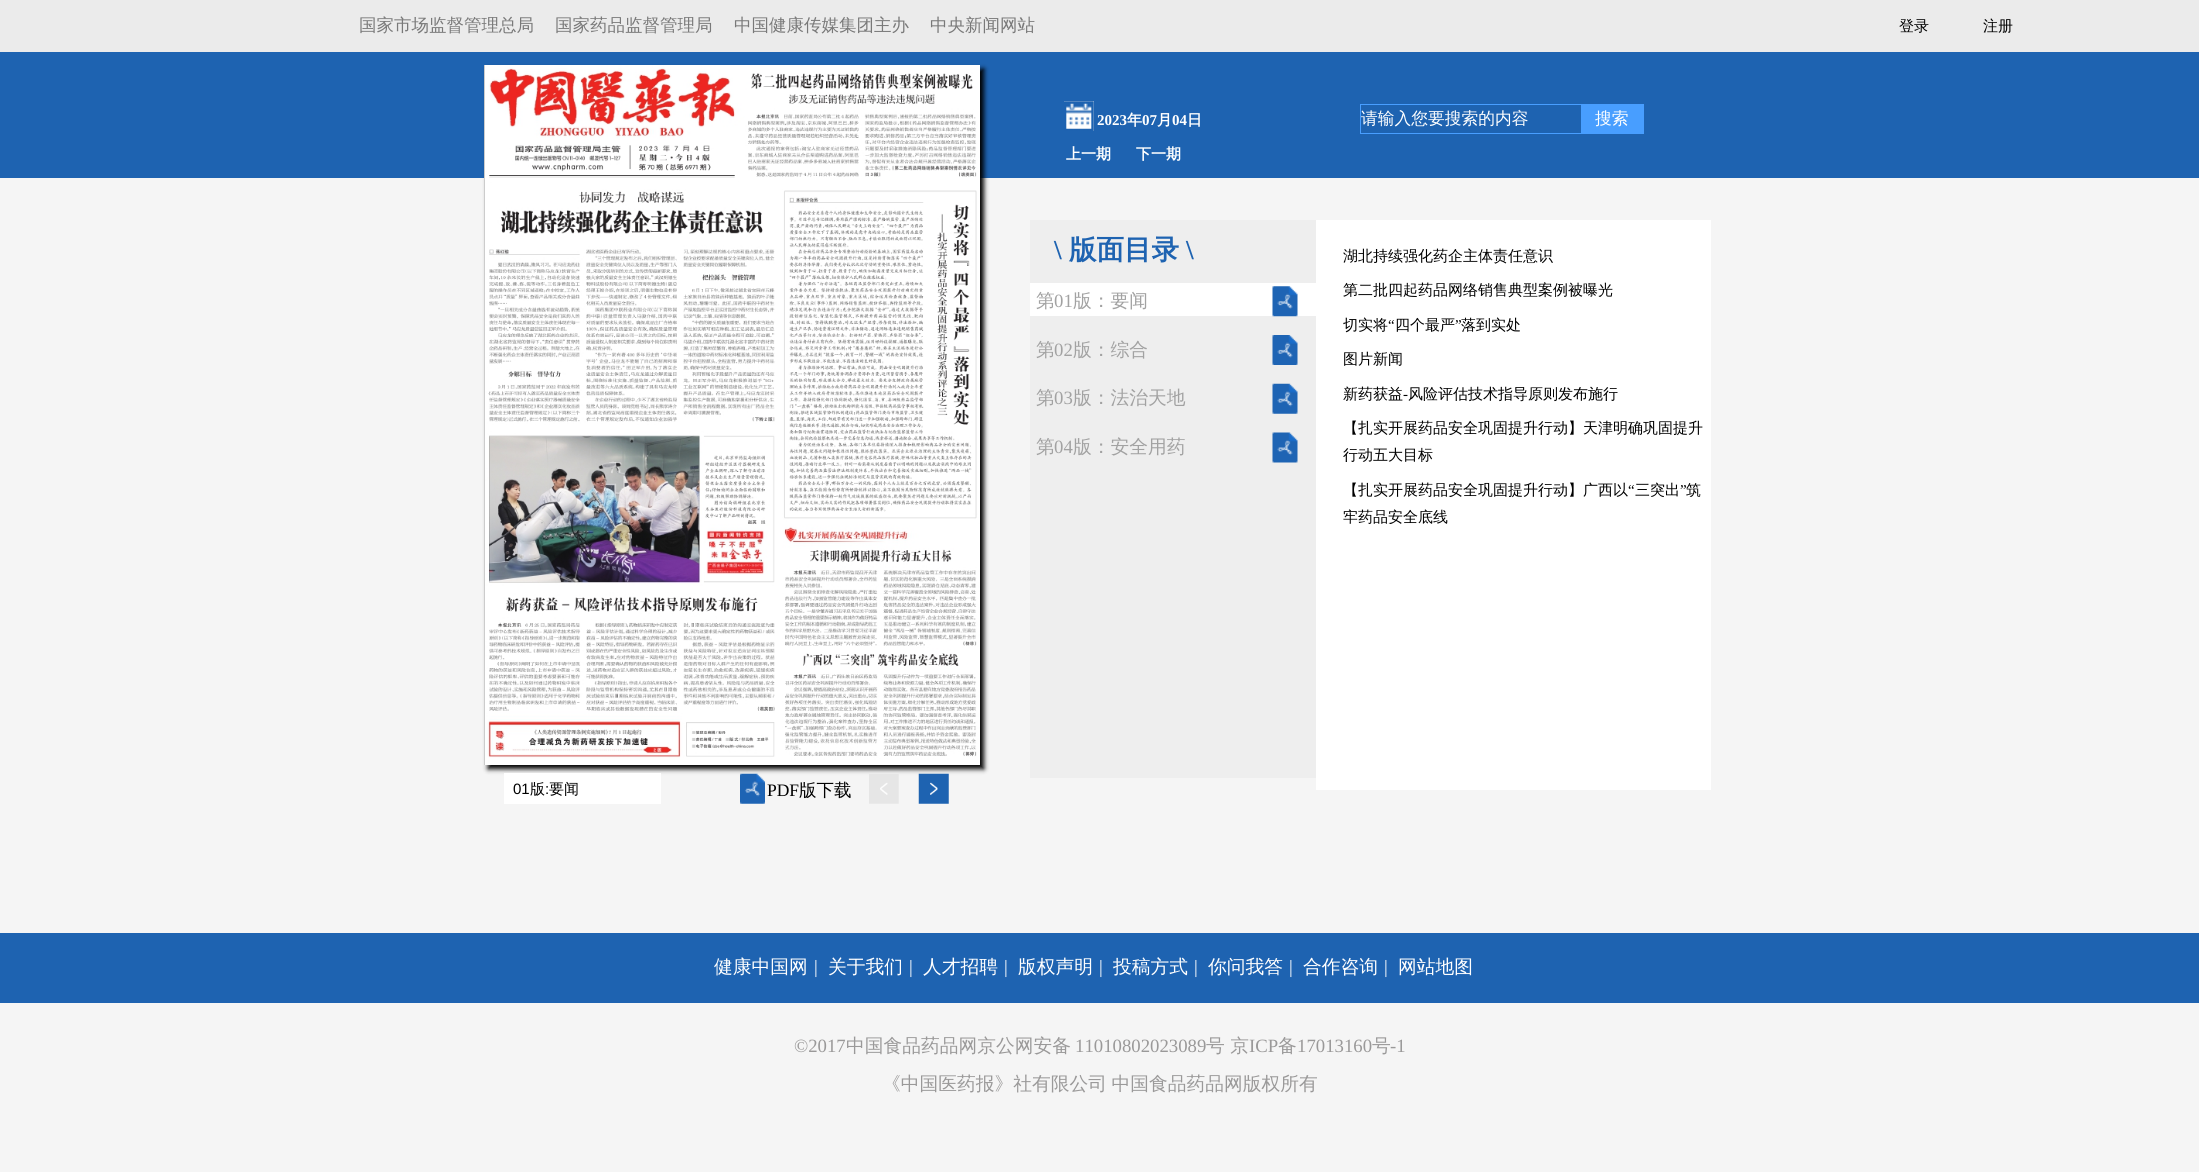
#include <cairo.h>
#include <math.h>
#include <stddef.h>

static cairo_t *ctx;

static void use_color(int r, int g, int b) {
    cairo_set_source_rgb(ctx, r / 255.0, g / 255.0, b / 255.0);
}

static void spaced_text(double x, double y, const char *s, double letter, double word) {
    cairo_move_to(ctx, x, y);
    while (*s) {
        char ch[5] = {0};
        int n = 0;
        do ch[n++] = *s++; while ((*s & 0xC0) == 0x80);
        cairo_show_text(ctx, ch);
        cairo_rel_move_to(ctx, letter + word * (*ch == ' '), 0);
    }
}

static void round_rect(double x, double y, double w, double h, double r) {
    cairo_new_sub_path(ctx);
    cairo_arc(ctx, x + w - r, y + h - r, r, 0, M_PI / 2);
    cairo_arc(ctx, x + r, y + h - r, r, M_PI / 2, M_PI);
    cairo_arc(ctx, x + r, y + r, r, M_PI, 1.5 * M_PI);
    cairo_arc(ctx, x + w - r, y + r, r, 1.5 * M_PI, 2 * M_PI);
    cairo_close_path(ctx);
}

static void shadow(double x, double y, double w, double h, double r, double blur, double alpha) {
    cairo_push_group_with_content(ctx, CAIRO_CONTENT_ALPHA);
    cairo_set_operator(ctx, CAIRO_OPERATOR_SOURCE);
    for (int i = 15; i >= -15 && fmin(w, h) + blur * i / 3 > 0; i -= 2) {
        double e = blur * i / 6;
        cairo_set_source_rgba(ctx, 0, 0, 0, alpha * erfc((i - 1) / 8.5) / 2);
        round_rect(x - e, y - e, w + 2 * e, h + 2 * e, fmax(0, fmin(r + e + blur * .6, fmin(w, h) / 2 + e)));
        cairo_fill(ctx);
    }
    cairo_pattern_t *soft = cairo_pop_group(ctx);
    cairo_mask(ctx, soft);
    cairo_pattern_destroy(soft);
}

static void picture(const char *path, double x, double y, double w, double h) {
    cairo_surface_t *image = cairo_image_surface_create_from_png(path);
    cairo_save(ctx);
    cairo_set_source_surface(ctx, image, x, y);
    cairo_rectangle(ctx, x, y, w, h);
    cairo_fill(ctx);
    cairo_restore(ctx);
    cairo_surface_destroy(image);
}

int main(void) {
    cairo_surface_t *surface = cairo_image_surface_create(CAIRO_FORMAT_RGB24, 2199, 1172);
    ctx = cairo_create(surface);
    cairo_font_options_t *options = cairo_font_options_create();
    cairo_font_options_set_hint_metrics(options, CAIRO_HINT_METRICS_OFF);
    cairo_font_options_set_hint_style(options, CAIRO_HINT_STYLE_NONE);
    cairo_set_font_options(ctx, options);
    cairo_set_miter_limit(ctx, 4);
    use_color(245, 245, 245);
    cairo_paint(ctx);
    use_color(235, 235, 235);
    cairo_rectangle(ctx, 0, 0, 2199, 52);
    cairo_fill(ctx);
    cairo_select_font_face(ctx, "WenQuanYi Zen Hei Medium", CAIRO_FONT_SLANT_NORMAL, CAIRO_FONT_WEIGHT_NORMAL);
    cairo_set_font_size(ctx, 17.5);
    use_color(121, 121, 121);
    cairo_move_to(ctx, 359, 31);
    cairo_show_text(ctx, "国家市场监督管理总局");
    cairo_move_to(ctx, 555, 31);
    cairo_show_text(ctx, "国家药品监督管理局");
    cairo_move_to(ctx, 734, 31);
    cairo_show_text(ctx, "中国健康传媒集团主办");
    cairo_move_to(ctx, 930, 31);
    cairo_show_text(ctx, "中央新闻网站");
    cairo_set_font_size(ctx, 15);
    use_color(0, 0, 0);
    cairo_move_to(ctx, 1899, 31);
    cairo_show_text(ctx, "登录");
    cairo_move_to(ctx, 1983, 31);
    cairo_show_text(ctx, "注册");
    use_color(30, 99, 177);
    cairo_rectangle(ctx, 0, 52, 2199, 126);
    cairo_fill(ctx);
    use_color(239, 239, 239);
    cairo_rectangle(ctx, 1064, 101, 30, 30);
    cairo_fill(ctx);
    picture("img1.png", 1064, 101, 30, 30);
    cairo_select_font_face(ctx, "Liberation Serif", CAIRO_FONT_SLANT_NORMAL, CAIRO_FONT_WEIGHT_BOLD);
    use_color(255, 255, 255);
    cairo_move_to(ctx, 1097, 125);
    cairo_show_text(ctx, "2023");
    cairo_select_font_face(ctx, "WenQuanYi Zen Hei", CAIRO_FONT_SLANT_NORMAL, CAIRO_FONT_WEIGHT_BOLD);
    cairo_move_to(ctx, 1127, 125);
    cairo_show_text(ctx, "年");
    cairo_select_font_face(ctx, "Liberation Serif", CAIRO_FONT_SLANT_NORMAL, CAIRO_FONT_WEIGHT_BOLD);
    cairo_move_to(ctx, 1142, 125);
    cairo_show_text(ctx, "07");
    cairo_select_font_face(ctx, "WenQuanYi Zen Hei", CAIRO_FONT_SLANT_NORMAL, CAIRO_FONT_WEIGHT_BOLD);
    cairo_move_to(ctx, 1157, 125);
    cairo_show_text(ctx, "月");
    cairo_select_font_face(ctx, "Liberation Serif", CAIRO_FONT_SLANT_NORMAL, CAIRO_FONT_WEIGHT_BOLD);
    cairo_move_to(ctx, 1172, 125);
    cairo_show_text(ctx, "04");
    cairo_select_font_face(ctx, "WenQuanYi Zen Hei", CAIRO_FONT_SLANT_NORMAL, CAIRO_FONT_WEIGHT_BOLD);
    cairo_move_to(ctx, 1187, 125);
    cairo_show_text(ctx, "日");
    cairo_rectangle(ctx, 1360.5, 104.5, 223, 29);
    use_color(72, 158, 255);
    cairo_set_line_width(ctx, 1);
    cairo_stroke(ctx);
    cairo_select_font_face(ctx, "WenQuanYi Zen Hei Medium", CAIRO_FONT_SLANT_NORMAL, CAIRO_FONT_WEIGHT_NORMAL);
    cairo_set_font_size(ctx, 16.75);
    use_color(255, 255, 255);
    cairo_move_to(ctx, 1361, 124);
    cairo_show_text(ctx, "请输入您要搜索的内容");
    use_color(72, 158, 255);
    cairo_rectangle(ctx, 1581, 104, 63, 30);
    cairo_fill(ctx);
    use_color(255, 255, 255);
    cairo_move_to(ctx, 1595, 124);
    cairo_show_text(ctx, "搜索");
    cairo_select_font_face(ctx, "WenQuanYi Zen Hei", CAIRO_FONT_SLANT_NORMAL, CAIRO_FONT_WEIGHT_BOLD);
    cairo_set_font_size(ctx, 15);
    cairo_move_to(ctx, 1066, 159);
    cairo_show_text(ctx, "上一期");
    cairo_move_to(ctx, 1136, 159);
    cairo_show_text(ctx, "下一期");
    use_color(238, 238, 238);
    cairo_rectangle(ctx, 1030, 220, 286, 63);
    cairo_fill(ctx);
    cairo_select_font_face(ctx, "Liberation Serif", CAIRO_FONT_SLANT_NORMAL, CAIRO_FONT_WEIGHT_BOLD);
    cairo_set_font_size(ctx, 27.5);
    use_color(30, 99, 177);
    cairo_move_to(ctx, 1054, 259);
    cairo_show_text(ctx, "\\");
    cairo_select_font_face(ctx, "WenQuanYi Zen Hei", CAIRO_FONT_SLANT_NORMAL, CAIRO_FONT_WEIGHT_BOLD);
    cairo_move_to(ctx, 1069, 259);
    cairo_show_text(ctx, "版面目录");
    cairo_select_font_face(ctx, "Liberation Serif", CAIRO_FONT_SLANT_NORMAL, CAIRO_FONT_WEIGHT_BOLD);
    cairo_move_to(ctx, 1186, 259);
    cairo_show_text(ctx, "\\");
    use_color(238, 238, 238);
    cairo_rectangle(ctx, 1030, 316, 286, 462);
    cairo_fill(ctx);
    use_color(255, 255, 255);
    cairo_rectangle(ctx, 1030, 283, 286, 33);
    cairo_fill(ctx);
    cairo_select_font_face(ctx, "WenQuanYi Zen Hei Medium", CAIRO_FONT_SLANT_NORMAL, CAIRO_FONT_WEIGHT_NORMAL);
    cairo_set_font_size(ctx, 18.75);
    use_color(162, 162, 162);
    cairo_move_to(ctx, 1036, 307);
    cairo_show_text(ctx, "第");
    cairo_select_font_face(ctx, "Liberation Serif", CAIRO_FONT_SLANT_NORMAL, CAIRO_FONT_WEIGHT_NORMAL);
    cairo_move_to(ctx, 1054, 307);
    cairo_show_text(ctx, "01");
    cairo_select_font_face(ctx, "WenQuanYi Zen Hei Medium", CAIRO_FONT_SLANT_NORMAL, CAIRO_FONT_WEIGHT_NORMAL);
    cairo_move_to(ctx, 1073, 307);
    cairo_show_text(ctx, "版：要闻");
    picture("img2.png", 1272, 286, 26, 31);
    cairo_move_to(ctx, 1036, 356);
    cairo_show_text(ctx, "第");
    cairo_select_font_face(ctx, "Liberation Serif", CAIRO_FONT_SLANT_NORMAL, CAIRO_FONT_WEIGHT_NORMAL);
    cairo_move_to(ctx, 1054, 356);
    cairo_show_text(ctx, "02");
    cairo_select_font_face(ctx, "WenQuanYi Zen Hei Medium", CAIRO_FONT_SLANT_NORMAL, CAIRO_FONT_WEIGHT_NORMAL);
    cairo_move_to(ctx, 1073, 356);
    cairo_show_text(ctx, "版：综合");
    picture("img3.png", 1272, 335, 26, 30);
    cairo_move_to(ctx, 1036, 404);
    cairo_show_text(ctx, "第");
    cairo_select_font_face(ctx, "Liberation Serif", CAIRO_FONT_SLANT_NORMAL, CAIRO_FONT_WEIGHT_NORMAL);
    cairo_move_to(ctx, 1054, 404);
    cairo_show_text(ctx, "03");
    cairo_select_font_face(ctx, "WenQuanYi Zen Hei Medium", CAIRO_FONT_SLANT_NORMAL, CAIRO_FONT_WEIGHT_NORMAL);
    cairo_move_to(ctx, 1073, 404);
    cairo_show_text(ctx, "版：法治天地");
    picture("img4.png", 1272, 383, 26, 31);
    cairo_move_to(ctx, 1036, 453);
    cairo_show_text(ctx, "第");
    cairo_select_font_face(ctx, "Liberation Serif", CAIRO_FONT_SLANT_NORMAL, CAIRO_FONT_WEIGHT_NORMAL);
    cairo_move_to(ctx, 1054, 453);
    cairo_show_text(ctx, "04");
    cairo_select_font_face(ctx, "WenQuanYi Zen Hei Medium", CAIRO_FONT_SLANT_NORMAL, CAIRO_FONT_WEIGHT_NORMAL);
    cairo_move_to(ctx, 1073, 453);
    cairo_show_text(ctx, "版：安全用药");
    picture("img5.png", 1272, 432, 26, 31);
    use_color(255, 255, 255);
    cairo_rectangle(ctx, 1316, 220, 395, 570);
    cairo_fill(ctx);
    cairo_set_font_size(ctx, 15);
    use_color(0, 0, 0);
    cairo_move_to(ctx, 1343, 261);
    cairo_show_text(ctx, "湖北持续强化药企主体责任意识");
    cairo_move_to(ctx, 1343, 295);
    cairo_show_text(ctx, "第二批四起药品网络销售典型案例被曝光");
    cairo_move_to(ctx, 1343, 330);
    cairo_show_text(ctx, "切实将");
    cairo_select_font_face(ctx, "Liberation Serif", CAIRO_FONT_SLANT_NORMAL, CAIRO_FONT_WEIGHT_NORMAL);
    cairo_move_to(ctx, 1388, 330);
    cairo_show_text(ctx, "“");
    cairo_select_font_face(ctx, "WenQuanYi Zen Hei Medium", CAIRO_FONT_SLANT_NORMAL, CAIRO_FONT_WEIGHT_NORMAL);
    cairo_move_to(ctx, 1395, 330);
    cairo_show_text(ctx, "四个最严");
    cairo_select_font_face(ctx, "Liberation Serif", CAIRO_FONT_SLANT_NORMAL, CAIRO_FONT_WEIGHT_NORMAL);
    cairo_move_to(ctx, 1455, 330);
    cairo_show_text(ctx, "”");
    cairo_select_font_face(ctx, "WenQuanYi Zen Hei Medium", CAIRO_FONT_SLANT_NORMAL, CAIRO_FONT_WEIGHT_NORMAL);
    cairo_move_to(ctx, 1461, 330);
    cairo_show_text(ctx, "落到实处");
    cairo_move_to(ctx, 1343, 364);
    cairo_show_text(ctx, "图片新闻");
    cairo_move_to(ctx, 1343, 399);
    cairo_show_text(ctx, "新药获益");
    cairo_select_font_face(ctx, "Liberation Serif", CAIRO_FONT_SLANT_NORMAL, CAIRO_FONT_WEIGHT_NORMAL);
    cairo_move_to(ctx, 1403, 399);
    cairo_show_text(ctx, "-");
    cairo_select_font_face(ctx, "WenQuanYi Zen Hei Medium", CAIRO_FONT_SLANT_NORMAL, CAIRO_FONT_WEIGHT_NORMAL);
    cairo_move_to(ctx, 1408, 399);
    cairo_show_text(ctx, "风险评估技术指导原则发布施行");
    cairo_move_to(ctx, 1343, 433);
    cairo_show_text(ctx, "【扎实开展药品安全巩固提升行动】天津明确巩固提升");
    cairo_move_to(ctx, 1343, 460);
    cairo_show_text(ctx, "行动五大目标");
    cairo_move_to(ctx, 1343, 495);
    cairo_show_text(ctx, "【扎实开展药品安全巩固提升行动】广西以");
    cairo_select_font_face(ctx, "Liberation Serif", CAIRO_FONT_SLANT_NORMAL, CAIRO_FONT_WEIGHT_NORMAL);
    cairo_move_to(ctx, 1628, 495);
    cairo_show_text(ctx, "“");
    cairo_select_font_face(ctx, "WenQuanYi Zen Hei Medium", CAIRO_FONT_SLANT_NORMAL, CAIRO_FONT_WEIGHT_NORMAL);
    cairo_move_to(ctx, 1635, 495);
    cairo_show_text(ctx, "三突出");
    cairo_select_font_face(ctx, "Liberation Serif", CAIRO_FONT_SLANT_NORMAL, CAIRO_FONT_WEIGHT_NORMAL);
    cairo_move_to(ctx, 1680, 495);
    cairo_show_text(ctx, "”");
    cairo_select_font_face(ctx, "WenQuanYi Zen Hei Medium", CAIRO_FONT_SLANT_NORMAL, CAIRO_FONT_WEIGHT_NORMAL);
    cairo_move_to(ctx, 1686, 495);
    cairo_show_text(ctx, "筑");
    cairo_move_to(ctx, 1343, 522);
    cairo_show_text(ctx, "牢药品安全底线");
    use_color(0, 0, 0);
    shadow(488, 69, 496, 700, 0, 2.5, 1);
    use_color(204, 204, 204);
    cairo_rectangle(ctx, 484, 65, 1, 700);
    cairo_fill(ctx);
    picture("img6.png", 485, 65, 495, 700);
    use_color(255, 255, 255);
    cairo_rectangle(ctx, 504, 773, 157, 31);
    cairo_fill(ctx);
    cairo_select_font_face(ctx, "Liberation Sans", CAIRO_FONT_SLANT_NORMAL, CAIRO_FONT_WEIGHT_NORMAL);
    use_color(0, 0, 0);
    cairo_move_to(ctx, 513, 794);
    cairo_show_text(ctx, "01");
    cairo_select_font_face(ctx, "WenQuanYi Zen Hei Medium", CAIRO_FONT_SLANT_NORMAL, CAIRO_FONT_WEIGHT_NORMAL);
    cairo_move_to(ctx, 530, 794);
    cairo_show_text(ctx, "版");
    cairo_select_font_face(ctx, "Liberation Sans", CAIRO_FONT_SLANT_NORMAL, CAIRO_FONT_WEIGHT_NORMAL);
    cairo_move_to(ctx, 545, 794);
    cairo_show_text(ctx, ":");
    cairo_select_font_face(ctx, "WenQuanYi Zen Hei Medium", CAIRO_FONT_SLANT_NORMAL, CAIRO_FONT_WEIGHT_NORMAL);
    cairo_move_to(ctx, 549, 794);
    cairo_show_text(ctx, "要闻");
    picture("img7.png", 740, 773, 25, 31);
    cairo_select_font_face(ctx, "Liberation Serif", CAIRO_FONT_SLANT_NORMAL, CAIRO_FONT_WEIGHT_NORMAL);
    cairo_set_font_size(ctx, 17.5);
    cairo_move_to(ctx, 767, 796);
    cairo_show_text(ctx, "PDF");
    cairo_select_font_face(ctx, "WenQuanYi Zen Hei Medium", CAIRO_FONT_SLANT_NORMAL, CAIRO_FONT_WEIGHT_NORMAL);
    cairo_move_to(ctx, 799, 796);
    cairo_show_text(ctx, "版下载");
    picture("img8.png", 869, 774, 30, 30);
    picture("img9.png", 918, 773, 31, 31);
    use_color(30, 99, 177);
    cairo_rectangle(ctx, 0, 933, 2199, 70);
    cairo_fill(ctx);
    cairo_set_font_size(ctx, 18.75);
    use_color(255, 255, 255);
    cairo_move_to(ctx, 714, 973);
    cairo_show_text(ctx, "健康中国网");
    cairo_select_font_face(ctx, "Liberation Serif", CAIRO_FONT_SLANT_NORMAL, CAIRO_FONT_WEIGHT_NORMAL);
    cairo_move_to(ctx, 814, 973);
    cairo_show_text(ctx, "|");
    cairo_select_font_face(ctx, "WenQuanYi Zen Hei Medium", CAIRO_FONT_SLANT_NORMAL, CAIRO_FONT_WEIGHT_NORMAL);
    cairo_move_to(ctx, 828, 973);
    cairo_show_text(ctx, "关于我们");
    cairo_select_font_face(ctx, "Liberation Serif", CAIRO_FONT_SLANT_NORMAL, CAIRO_FONT_WEIGHT_NORMAL);
    cairo_move_to(ctx, 909, 973);
    cairo_show_text(ctx, "|");
    cairo_select_font_face(ctx, "WenQuanYi Zen Hei Medium", CAIRO_FONT_SLANT_NORMAL, CAIRO_FONT_WEIGHT_NORMAL);
    cairo_move_to(ctx, 923, 973);
    cairo_show_text(ctx, "人才招聘");
    cairo_select_font_face(ctx, "Liberation Serif", CAIRO_FONT_SLANT_NORMAL, CAIRO_FONT_WEIGHT_NORMAL);
    cairo_move_to(ctx, 1004, 973);
    cairo_show_text(ctx, "|");
    cairo_select_font_face(ctx, "WenQuanYi Zen Hei Medium", CAIRO_FONT_SLANT_NORMAL, CAIRO_FONT_WEIGHT_NORMAL);
    cairo_move_to(ctx, 1018, 973);
    cairo_show_text(ctx, "版权声明");
    cairo_select_font_face(ctx, "Liberation Serif", CAIRO_FONT_SLANT_NORMAL, CAIRO_FONT_WEIGHT_NORMAL);
    cairo_move_to(ctx, 1099, 973);
    cairo_show_text(ctx, "|");
    cairo_select_font_face(ctx, "WenQuanYi Zen Hei Medium", CAIRO_FONT_SLANT_NORMAL, CAIRO_FONT_WEIGHT_NORMAL);
    cairo_move_to(ctx, 1113, 973);
    cairo_show_text(ctx, "投稿方式");
    cairo_select_font_face(ctx, "Liberation Serif", CAIRO_FONT_SLANT_NORMAL, CAIRO_FONT_WEIGHT_NORMAL);
    cairo_move_to(ctx, 1194, 973);
    cairo_show_text(ctx, "|");
    cairo_select_font_face(ctx, "WenQuanYi Zen Hei Medium", CAIRO_FONT_SLANT_NORMAL, CAIRO_FONT_WEIGHT_NORMAL);
    cairo_move_to(ctx, 1208, 973);
    cairo_show_text(ctx, "你问我答");
    cairo_select_font_face(ctx, "Liberation Serif", CAIRO_FONT_SLANT_NORMAL, CAIRO_FONT_WEIGHT_NORMAL);
    cairo_move_to(ctx, 1289, 973);
    cairo_show_text(ctx, "|");
    cairo_select_font_face(ctx, "WenQuanYi Zen Hei Medium", CAIRO_FONT_SLANT_NORMAL, CAIRO_FONT_WEIGHT_NORMAL);
    cairo_move_to(ctx, 1303, 973);
    cairo_show_text(ctx, "合作咨询");
    cairo_select_font_face(ctx, "Liberation Serif", CAIRO_FONT_SLANT_NORMAL, CAIRO_FONT_WEIGHT_NORMAL);
    cairo_move_to(ctx, 1384, 973);
    cairo_show_text(ctx, "|");
    cairo_select_font_face(ctx, "WenQuanYi Zen Hei Medium", CAIRO_FONT_SLANT_NORMAL, CAIRO_FONT_WEIGHT_NORMAL);
    cairo_move_to(ctx, 1398, 973);
    cairo_show_text(ctx, "网站地图");
    cairo_select_font_face(ctx, "Liberation Serif", CAIRO_FONT_SLANT_NORMAL, CAIRO_FONT_WEIGHT_NORMAL);
    use_color(154, 153, 153);
    cairo_move_to(ctx, 794, 1052);
    cairo_show_text(ctx, "©2017");
    cairo_select_font_face(ctx, "WenQuanYi Zen Hei Medium", CAIRO_FONT_SLANT_NORMAL, CAIRO_FONT_WEIGHT_NORMAL);
    cairo_move_to(ctx, 846, 1052);
    cairo_show_text(ctx, "中国食品药品网京公网安备");
    cairo_select_font_face(ctx, "Liberation Serif", CAIRO_FONT_SLANT_NORMAL, CAIRO_FONT_WEIGHT_NORMAL);
    cairo_move_to(ctx, 1075, 1052);
    cairo_show_text(ctx, "11010802023089");
    cairo_select_font_face(ctx, "WenQuanYi Zen Hei Medium", CAIRO_FONT_SLANT_NORMAL, CAIRO_FONT_WEIGHT_NORMAL);
    cairo_move_to(ctx, 1206, 1052);
    cairo_show_text(ctx, "号 京");
    cairo_select_font_face(ctx, "Liberation Serif", CAIRO_FONT_SLANT_NORMAL, CAIRO_FONT_WEIGHT_NORMAL);
    cairo_move_to(ctx, 1249, 1052);
    cairo_show_text(ctx, "ICP");
    cairo_select_font_face(ctx, "WenQuanYi Zen Hei Medium", CAIRO_FONT_SLANT_NORMAL, CAIRO_FONT_WEIGHT_NORMAL);
    cairo_move_to(ctx, 1278, 1052);
    cairo_show_text(ctx, "备");
    cairo_select_font_face(ctx, "Liberation Serif", CAIRO_FONT_SLANT_NORMAL, CAIRO_FONT_WEIGHT_NORMAL);
    cairo_move_to(ctx, 1297, 1052);
    cairo_show_text(ctx, "17013160");
    cairo_select_font_face(ctx, "WenQuanYi Zen Hei Medium", CAIRO_FONT_SLANT_NORMAL, CAIRO_FONT_WEIGHT_NORMAL);
    cairo_move_to(ctx, 1372, 1052);
    cairo_show_text(ctx, "号");
    cairo_select_font_face(ctx, "Liberation Serif", CAIRO_FONT_SLANT_NORMAL, CAIRO_FONT_WEIGHT_NORMAL);
    cairo_move_to(ctx, 1390, 1052);
    cairo_show_text(ctx, "-1");
    cairo_select_font_face(ctx, "WenQuanYi Zen Hei Medium", CAIRO_FONT_SLANT_NORMAL, CAIRO_FONT_WEIGHT_NORMAL);
    spaced_text(882, 1090, "《中国医药报》社有限公司 中国食品药品网版权所有", 0, -1);
    cairo_surface_write_to_png(surface, "result.png");
    cairo_font_options_destroy(options);
    cairo_destroy(ctx);
    cairo_surface_destroy(surface);
    return 0;
}
